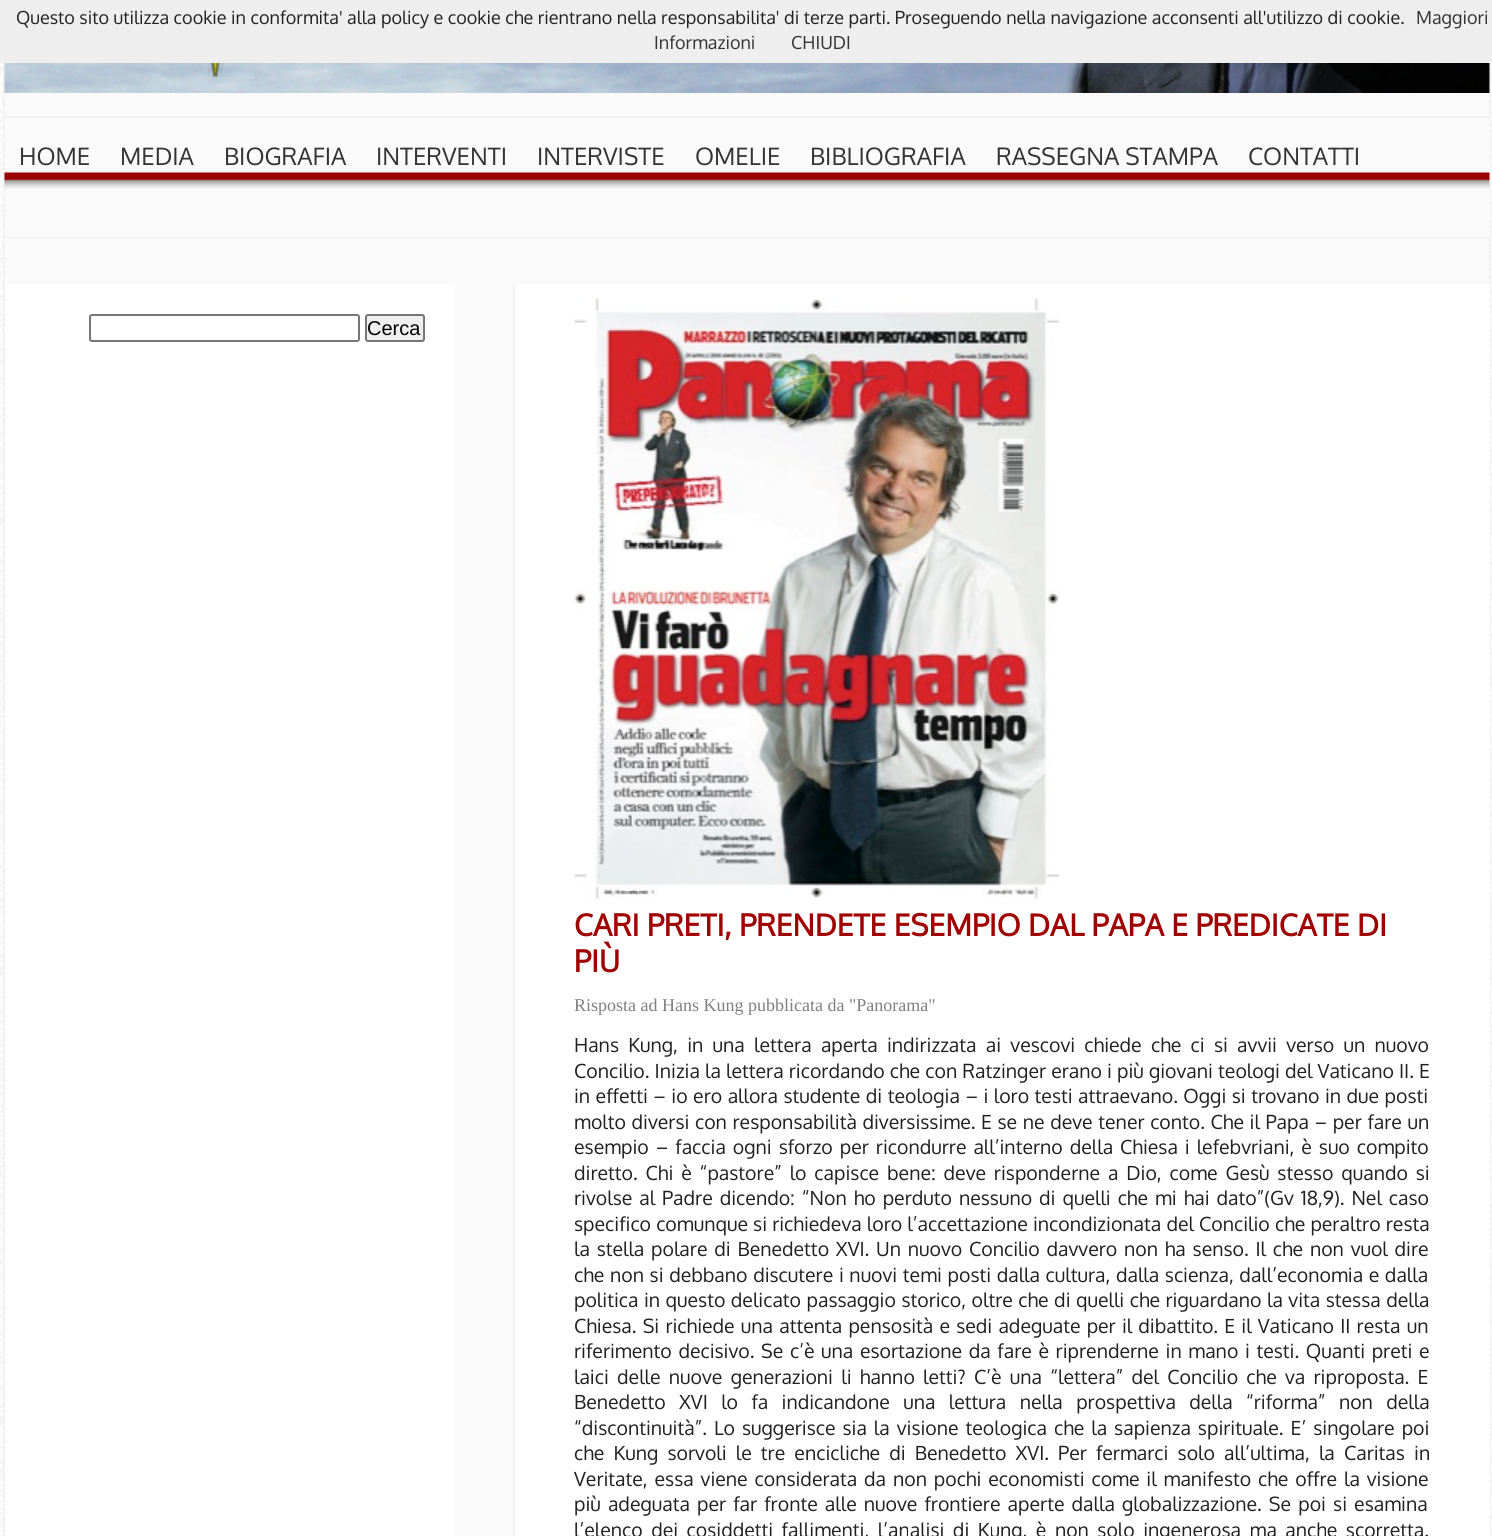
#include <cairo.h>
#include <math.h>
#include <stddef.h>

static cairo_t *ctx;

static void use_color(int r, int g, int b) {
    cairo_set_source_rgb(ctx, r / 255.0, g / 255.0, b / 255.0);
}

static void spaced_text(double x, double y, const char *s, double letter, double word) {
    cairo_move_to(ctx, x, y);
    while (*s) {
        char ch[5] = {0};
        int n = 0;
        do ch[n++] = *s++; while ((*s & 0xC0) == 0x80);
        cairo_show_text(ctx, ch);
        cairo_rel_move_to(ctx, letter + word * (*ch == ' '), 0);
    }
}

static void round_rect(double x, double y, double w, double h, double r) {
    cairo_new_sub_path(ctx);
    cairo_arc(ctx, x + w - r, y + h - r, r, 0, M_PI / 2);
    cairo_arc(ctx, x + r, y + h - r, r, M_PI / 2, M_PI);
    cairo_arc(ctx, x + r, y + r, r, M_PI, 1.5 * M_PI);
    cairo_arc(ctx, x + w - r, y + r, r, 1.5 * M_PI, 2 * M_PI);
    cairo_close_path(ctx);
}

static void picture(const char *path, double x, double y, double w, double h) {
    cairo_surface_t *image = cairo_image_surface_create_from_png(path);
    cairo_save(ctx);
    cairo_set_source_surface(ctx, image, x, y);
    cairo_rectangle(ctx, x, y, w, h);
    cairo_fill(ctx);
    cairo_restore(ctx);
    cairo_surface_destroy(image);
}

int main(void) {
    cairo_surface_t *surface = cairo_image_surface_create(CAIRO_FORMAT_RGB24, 1492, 1536);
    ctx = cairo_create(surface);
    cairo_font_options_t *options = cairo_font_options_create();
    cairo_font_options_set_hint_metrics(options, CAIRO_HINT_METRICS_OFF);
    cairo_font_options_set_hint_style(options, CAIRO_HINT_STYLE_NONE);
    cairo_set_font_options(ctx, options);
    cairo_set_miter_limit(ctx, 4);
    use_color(255, 255, 255);
    cairo_paint(ctx);
    picture("img1.png", 0, 63, 1492, 1473);
    use_color(250, 250, 250);
    cairo_rectangle(ctx, 5, 93, 1484, 1443);
    cairo_fill(ctx);
    cairo_rectangle(ctx, 4, -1, 1486, 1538);
    use_color(242, 242, 242);
    cairo_stroke(ctx);
    use_color(238, 238, 238);
    cairo_rectangle(ctx, 0, 0, 1492, 63);
    cairo_fill(ctx);
    cairo_select_font_face(ctx, "Oxygen", CAIRO_FONT_SLANT_NORMAL, CAIRO_FONT_WEIGHT_NORMAL);
    cairo_set_font_size(ctx, 18);
    use_color(33, 33, 33);
    cairo_move_to(ctx, 16, 24);
    cairo_show_text(ctx, "Questo sito utilizza cookie in conformita' alla policy e cookie che rientrano nella responsabilita' di terze parti. Proseguendo nella navigazione acconsenti all'utilizzo di cookie.");
    use_color(51, 51, 51);
    cairo_move_to(ctx, 1416, 24);
    cairo_show_text(ctx, "Maggiori");
    cairo_move_to(ctx, 654, 49);
    cairo_show_text(ctx, "Informazioni");
    cairo_move_to(ctx, 791, 49);
    cairo_show_text(ctx, "CHIUDI");
    picture("img2.png", 4, 63, 1486, 30);
    use_color(250, 250, 250);
    cairo_rectangle(ctx, 1489, 118, 1, 119);
    cairo_fill(ctx);
    picture("img3.png", 4, 170, 1486, 19);
    use_color(242, 242, 242);
    cairo_rectangle(ctx, 5, 116, 1485, 2);
    cairo_fill(ctx);
    cairo_rectangle(ctx, 5, 237, 1485, 2);
    cairo_fill(ctx);
    cairo_set_font_size(ctx, 24);
    use_color(51, 51, 51);
    cairo_move_to(ctx, 19, 165);
    cairo_show_text(ctx, "HOME");
    cairo_move_to(ctx, 120, 165);
    cairo_show_text(ctx, "MEDIA");
    cairo_move_to(ctx, 224, 165);
    cairo_show_text(ctx, "BIOGRAFIA");
    cairo_move_to(ctx, 376, 165);
    cairo_show_text(ctx, "INTERVENTI");
    cairo_move_to(ctx, 537, 165);
    cairo_show_text(ctx, "INTERVISTE");
    cairo_move_to(ctx, 695, 165);
    cairo_show_text(ctx, "OMELIE");
    cairo_move_to(ctx, 810, 165);
    cairo_show_text(ctx, "BIBLIOGRAFIA");
    cairo_move_to(ctx, 996, 165);
    cairo_show_text(ctx, "RASSEGNA STAMPA");
    cairo_move_to(ctx, 1248, 165);
    cairo_show_text(ctx, "CONTATTI");
    use_color(255, 255, 255);
    cairo_rectangle(ctx, 5, 284, 450, 1252);
    cairo_fill(ctx);
    round_rect(90, 315, 269, 26, 2);
    use_color(118, 118, 118);
    cairo_stroke(ctx);
    use_color(239, 239, 239);
    round_rect(366, 315, 58, 26, 2);
    cairo_fill_preserve(ctx);
    use_color(118, 118, 118);
    cairo_stroke(ctx);
    cairo_select_font_face(ctx, "Liberation Sans", CAIRO_FONT_SLANT_NORMAL, CAIRO_FONT_WEIGHT_NORMAL);
    cairo_set_font_size(ctx, 20);
    use_color(0, 0, 0);
    cairo_move_to(ctx, 367, 335);
    cairo_show_text(ctx, "Cerca");
    use_color(255, 255, 255);
    cairo_rectangle(ctx, 515, 284, 975, 1252);
    cairo_fill(ctx);
    use_color(242, 242, 242);
    cairo_rectangle(ctx, 513, 284, 2, 1252);
    cairo_fill(ctx);
    picture("img4.png", 574, 298, 485, 601);
    cairo_select_font_face(ctx, "Oxygen", CAIRO_FONT_SLANT_NORMAL, CAIRO_FONT_WEIGHT_BOLD);
    cairo_set_font_size(ctx, 30);
    use_color(160, 0, 0);
    cairo_move_to(ctx, 574, 936);
    cairo_show_text(ctx, "CARI PRETI, PRENDETE ESEMPIO DAL PAPA E PREDICATE DI");
    cairo_move_to(ctx, 574, 972);
    cairo_show_text(ctx, "PIÙ");
    cairo_select_font_face(ctx, "Liberation Serif", CAIRO_FONT_SLANT_NORMAL, CAIRO_FONT_WEIGHT_NORMAL);
    cairo_set_font_size(ctx, 18);
    use_color(127, 127, 127);
    cairo_move_to(ctx, 574, 1011);
    cairo_show_text(ctx, "Risposta ad Hans Kung pubblicata da \"Panorama\"");
    cairo_select_font_face(ctx, "Oxygen", CAIRO_FONT_SLANT_NORMAL, CAIRO_FONT_WEIGHT_NORMAL);
    cairo_set_font_size(ctx, 19.5);
    use_color(33, 33, 33);
    spaced_text(574, 1052, "Hans Kung, in una lettera aperta indirizzata ai vescovi chiede che ci si avvii verso un nuovo", 0, 4.4);
    spaced_text(574, 1078, "Concilio. Inizia la lettera ricordando che con Ratzinger erano i più giovani teologi del Vaticano II. E", 0, 0.25);
    spaced_text(574, 1103, "in effetti – io ero allora studente di teologia – i loro testi attraevano. Oggi si trovano in due posti", 0, 0.6);
    spaced_text(574, 1129, "molto diversi con responsabilità diversissime. E se ne deve tener conto. Che il Papa – per fare un", 0, 0.75);
    spaced_text(574, 1154, "esempio – faccia ogni sforzo per ricondurre all’interno della Chiesa i lefebvriani, è suo compito", 0, 2.1);
    spaced_text(574, 1180, "diretto. Chi è “pastore” lo capisce bene: deve risponderne a Dio, come Gesù stesso quando si", 0, 3);
    spaced_text(574, 1205, "rivolse al Padre dicendo: “Non ho perduto nessuno di quelli che mi hai dato”(Gv 18,9). Nel caso", 0, 2.1);
    spaced_text(574, 1231, "specifico comunque si richiedeva loro l’accettazione incondizionata del Concilio che peraltro resta", 0, 0.25);
    spaced_text(574, 1256, "la stella polare di Benedetto XVI. Un nuovo Concilio davvero non ha senso. Il che non vuol dire", 0, 1.9);
    spaced_text(574, 1282, "che non si debbano discutere i nuovi temi posti dalla cultura, dalla scienza, dall’economia e dalla", 0, 0.75);
    spaced_text(574, 1307, "politica in questo delicato passaggio storico, oltre che di quelli che riguardano la vita stessa della", 0, 0.6);
    spaced_text(574, 1333, "Chiesa. Si richiede una attenta pensosità e sedi adeguate per il dibattito. E il Vaticano II resta un", 0, 1.3);
    spaced_text(574, 1358, "riferimento decisivo. Se c’è una esortazione da fare è riprenderne in mano i testi. Quanti preti e", 0, 1.75);
    spaced_text(574, 1384, "laici delle nuove generazioni li hanno letti? C’è una “lettera” del Concilio che va riproposta. E", 0, 3.4);
    spaced_text(574, 1409, "Benedetto XVI lo fa indicandone una lettura nella prospettiva della “riforma” non della", 0, 8.5);
    spaced_text(574, 1435, "“discontinuità”. Lo suggerisce sia la visione teologica che la sapienza spirituale. E’ singolare poi", 0, 2.1);
    spaced_text(574, 1460, "che Kung sorvoli le tre encicliche di Benedetto XVI. Per fermarci solo all’ultima, la Caritas in", 0, 4.25);
    spaced_text(574, 1486, "Veritate, essa viene considerata da non pochi economisti come il manifesto che offre la visione", 0, 2);
    spaced_text(574, 1511, "più adeguata per far fronte alle nuove frontiere aperte dalla globalizzazione. Se poi si esamina", 0, 2.25);
    spaced_text(574, 1537, "l’elenco dei cosiddetti fallimenti, l’analisi di Kung, è non solo ingenerosa ma anche scorretta.", 0, 3.6);
    cairo_surface_write_to_png(surface, "result.png");
    cairo_font_options_destroy(options);
    cairo_destroy(ctx);
    cairo_surface_destroy(surface);
    return 0;
}
